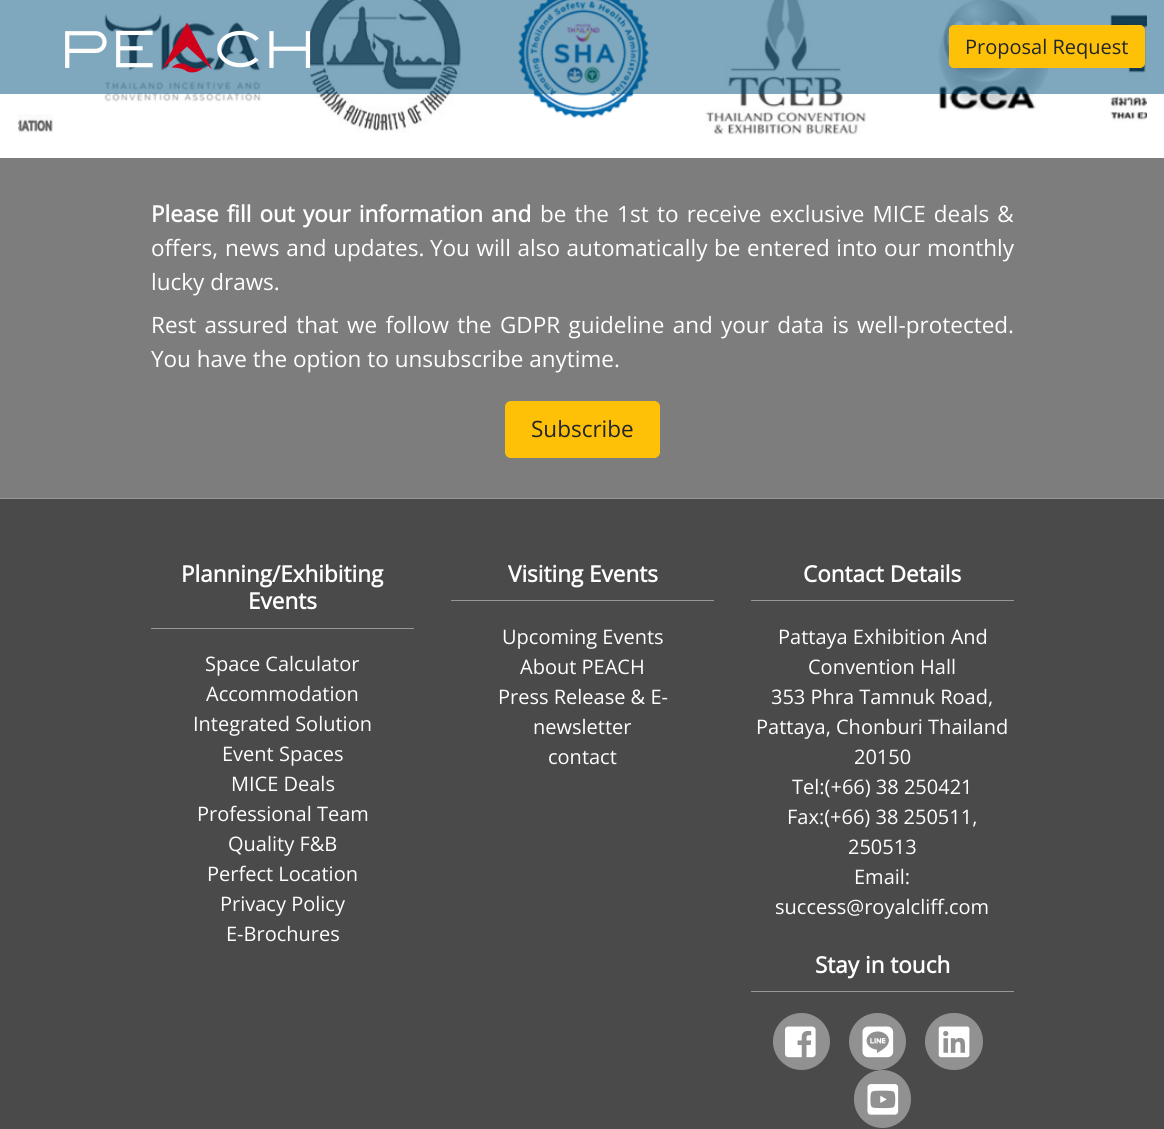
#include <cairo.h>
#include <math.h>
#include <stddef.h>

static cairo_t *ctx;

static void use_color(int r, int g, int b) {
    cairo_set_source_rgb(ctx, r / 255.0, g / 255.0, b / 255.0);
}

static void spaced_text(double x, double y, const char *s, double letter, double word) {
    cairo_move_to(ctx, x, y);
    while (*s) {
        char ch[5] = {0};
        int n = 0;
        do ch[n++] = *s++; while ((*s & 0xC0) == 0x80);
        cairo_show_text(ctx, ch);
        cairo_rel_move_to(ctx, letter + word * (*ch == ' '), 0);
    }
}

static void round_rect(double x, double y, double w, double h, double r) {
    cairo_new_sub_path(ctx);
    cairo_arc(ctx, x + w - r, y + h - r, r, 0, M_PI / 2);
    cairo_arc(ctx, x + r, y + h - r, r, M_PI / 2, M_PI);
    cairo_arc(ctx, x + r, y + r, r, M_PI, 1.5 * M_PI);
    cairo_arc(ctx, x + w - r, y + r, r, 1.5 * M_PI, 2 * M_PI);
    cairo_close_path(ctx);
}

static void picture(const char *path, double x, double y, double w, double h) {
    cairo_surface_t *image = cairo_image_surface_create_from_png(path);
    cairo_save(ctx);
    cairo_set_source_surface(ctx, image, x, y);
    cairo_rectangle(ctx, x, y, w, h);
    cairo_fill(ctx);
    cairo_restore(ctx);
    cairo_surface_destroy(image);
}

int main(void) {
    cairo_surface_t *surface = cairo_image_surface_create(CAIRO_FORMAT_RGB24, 1164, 1129);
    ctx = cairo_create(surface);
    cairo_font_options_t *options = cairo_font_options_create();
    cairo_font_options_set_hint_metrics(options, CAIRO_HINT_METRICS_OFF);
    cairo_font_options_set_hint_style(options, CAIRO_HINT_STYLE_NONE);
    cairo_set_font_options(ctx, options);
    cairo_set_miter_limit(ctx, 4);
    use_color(255, 255, 255);
    cairo_paint(ctx);
    picture("img3.png", 104, 14, 157, 88);
    picture("img4.png", 306, 0, 155, 133);
    picture("img5.png", 517, 0, 132, 119);
    picture("img6.png", 705, 0, 161, 135);
    picture("img7.png", 938, 0, 113, 111);
    picture("img8.png", 1110, 14, 37, 108);
    cairo_set_source_rgba(ctx, 0, 0.325, 0.498, 0.5);
    cairo_rectangle(ctx, 0, 0, 1164, 94);
    cairo_fill(ctx);
    picture("img1.png", 65, 23, 246, 50);
    use_color(255, 193, 7);
    round_rect(949.5, 25.5, 195, 42, 4.5);
    cairo_fill_preserve(ctx);
    cairo_set_line_width(ctx, 1);
    cairo_stroke(ctx);
    cairo_select_font_face(ctx, "Open Sans", CAIRO_FONT_SLANT_NORMAL, CAIRO_FONT_WEIGHT_NORMAL);
    cairo_set_font_size(ctx, 20);
    use_color(33, 37, 41);
    cairo_move_to(ctx, 965, 54);
    cairo_show_text(ctx, "Proposal Request");
    picture("img2.png", 18, 114, 35, 19);
    use_color(125, 125, 125);
    cairo_rectangle(ctx, 0, 158, 1164, 340);
    cairo_fill(ctx);
    use_color(151, 151, 151);
    cairo_rectangle(ctx, 0, 498, 1164, 1);
    cairo_fill(ctx);
    cairo_select_font_face(ctx, "Open Sans", CAIRO_FONT_SLANT_NORMAL, CAIRO_FONT_WEIGHT_BOLD);
    cairo_set_font_size(ctx, 22.5);
    use_color(255, 255, 255);
    spaced_text(151, 222, "Please fill out your information and", 0, 2.25);
    cairo_select_font_face(ctx, "Open Sans", CAIRO_FONT_SLANT_NORMAL, CAIRO_FONT_WEIGHT_NORMAL);
    spaced_text(540, 222, "be the 1st", 0, 2.25);
    spaced_text(657, 222, "to receive exclusive MICE deals &", 0, 2.25);
    spaced_text(151, 256, "offers, news and updates.", 0, 1);
    spaced_text(430, 256, "You will also automatically be entered into our monthly", 0, 0.75);
    cairo_move_to(ctx, 151, 290);
    cairo_show_text(ctx, "lucky draws.");
    spaced_text(151, 333, "Rest assured that we follow the GDPR guideline and your data is well-protected.", 0, 2.5);
    cairo_move_to(ctx, 151, 367);
    cairo_show_text(ctx, "You have the option to unsubscribe anytime.");
    use_color(255, 193, 7);
    round_rect(505.5, 401.5, 154, 56, 5.5);
    cairo_fill_preserve(ctx);
    cairo_stroke(ctx);
    use_color(33, 37, 41);
    cairo_move_to(ctx, 531, 437);
    cairo_show_text(ctx, "Subscribe");
    use_color(74, 74, 74);
    cairo_rectangle(ctx, 0, 499, 1164, 630);
    cairo_fill(ctx);
    use_color(151, 151, 151);
    cairo_rectangle(ctx, 151, 628, 263, 1);
    cairo_fill(ctx);
    cairo_select_font_face(ctx, "Open Sans", CAIRO_FONT_SLANT_NORMAL, CAIRO_FONT_WEIGHT_BOLD);
    use_color(255, 255, 255);
    cairo_move_to(ctx, 181, 582);
    cairo_show_text(ctx, "Planning/Exhibiting");
    cairo_move_to(ctx, 248, 609);
    cairo_show_text(ctx, "Events");
    cairo_select_font_face(ctx, "Open Sans", CAIRO_FONT_SLANT_NORMAL, CAIRO_FONT_WEIGHT_NORMAL);
    cairo_set_font_size(ctx, 20);
    cairo_move_to(ctx, 205, 671);
    cairo_show_text(ctx, "Space Calculator");
    cairo_move_to(ctx, 206, 701);
    cairo_show_text(ctx, "Accommodation");
    cairo_move_to(ctx, 193, 731);
    cairo_show_text(ctx, "Integrated Solution");
    cairo_move_to(ctx, 222, 761);
    cairo_show_text(ctx, "Event Spaces");
    cairo_move_to(ctx, 231, 791);
    cairo_show_text(ctx, "MICE Deals");
    cairo_move_to(ctx, 197, 821);
    cairo_show_text(ctx, "Professional Team");
    cairo_move_to(ctx, 228, 851);
    cairo_show_text(ctx, "Quality F&B");
    cairo_move_to(ctx, 207, 881);
    cairo_show_text(ctx, "Perfect Location");
    cairo_move_to(ctx, 220, 911);
    cairo_show_text(ctx, "Privacy Policy");
    cairo_move_to(ctx, 226, 941);
    cairo_show_text(ctx, "E-Brochures");
    use_color(151, 151, 151);
    cairo_rectangle(ctx, 451, 600, 263, 1);
    cairo_fill(ctx);
    cairo_select_font_face(ctx, "Open Sans", CAIRO_FONT_SLANT_NORMAL, CAIRO_FONT_WEIGHT_BOLD);
    cairo_set_font_size(ctx, 22.5);
    use_color(255, 255, 255);
    cairo_move_to(ctx, 508, 582);
    cairo_show_text(ctx, "Visiting Events");
    cairo_select_font_face(ctx, "Open Sans", CAIRO_FONT_SLANT_NORMAL, CAIRO_FONT_WEIGHT_NORMAL);
    cairo_set_font_size(ctx, 20);
    cairo_move_to(ctx, 502, 644);
    cairo_show_text(ctx, "Upcoming Events");
    cairo_move_to(ctx, 520, 674);
    cairo_show_text(ctx, "About PEACH");
    cairo_move_to(ctx, 498, 704);
    cairo_show_text(ctx, "Press Release & E-");
    cairo_move_to(ctx, 533, 734);
    cairo_show_text(ctx, "newsletter");
    cairo_move_to(ctx, 548, 764);
    cairo_show_text(ctx, "contact");
    use_color(151, 151, 151);
    cairo_rectangle(ctx, 751, 600, 263, 1);
    cairo_fill(ctx);
    cairo_select_font_face(ctx, "Open Sans", CAIRO_FONT_SLANT_NORMAL, CAIRO_FONT_WEIGHT_BOLD);
    cairo_set_font_size(ctx, 22.5);
    use_color(255, 255, 255);
    cairo_move_to(ctx, 803, 582);
    cairo_show_text(ctx, "Contact Details");
    cairo_select_font_face(ctx, "Open Sans", CAIRO_FONT_SLANT_NORMAL, CAIRO_FONT_WEIGHT_NORMAL);
    cairo_set_font_size(ctx, 20);
    cairo_move_to(ctx, 778, 644);
    cairo_show_text(ctx, "Pattaya Exhibition And");
    cairo_move_to(ctx, 808, 674);
    cairo_show_text(ctx, "Convention Hall");
    cairo_move_to(ctx, 771, 704);
    cairo_show_text(ctx, "353 Phra Tamnuk Road,");
    cairo_move_to(ctx, 756, 734);
    cairo_show_text(ctx, "Pattaya, Chonburi Thailand");
    cairo_move_to(ctx, 854, 764);
    cairo_show_text(ctx, "20150");
    cairo_move_to(ctx, 792, 794);
    cairo_show_text(ctx, "Tel:(+66) 38 250421");
    cairo_move_to(ctx, 787, 824);
    cairo_show_text(ctx, "Fax:(+66) 38 250511,");
    cairo_move_to(ctx, 848, 854);
    cairo_show_text(ctx, "250513");
    cairo_move_to(ctx, 854, 884);
    cairo_show_text(ctx, "Email:");
    cairo_move_to(ctx, 775, 914);
    cairo_show_text(ctx, "success@royalcliff.com");
    use_color(151, 151, 151);
    cairo_rectangle(ctx, 751, 991, 263, 1);
    cairo_fill(ctx);
    cairo_select_font_face(ctx, "Open Sans", CAIRO_FONT_SLANT_NORMAL, CAIRO_FONT_WEIGHT_BOLD);
    cairo_set_font_size(ctx, 22.5);
    use_color(255, 255, 255);
    cairo_move_to(ctx, 815, 973);
    cairo_show_text(ctx, "Stay in touch");
    use_color(145, 145, 145);
    cairo_new_path(ctx);
    cairo_arc(ctx, 801.5, 1041.5, 28.5, 0, 2 * M_PI);
    cairo_fill(ctx);
    picture("img9.png", 785, 1026, 31, 32);
    cairo_arc(ctx, 877.5, 1041.5, 28.5, 0, 2 * M_PI);
    cairo_fill(ctx);
    picture("img10.png", 862, 1026, 32, 32);
    round_rect(925, 1013, 58, 57, 28.5);
    cairo_fill(ctx);
    picture("img11.png", 938, 1026, 32, 32);
    round_rect(854, 1070, 57, 58, 28.5);
    cairo_fill(ctx);
    picture("img12.png", 867, 1084, 32, 31);
    cairo_surface_write_to_png(surface, "result.png");
    cairo_font_options_destroy(options);
    cairo_destroy(ctx);
    cairo_surface_destroy(surface);
    return 0;
}
